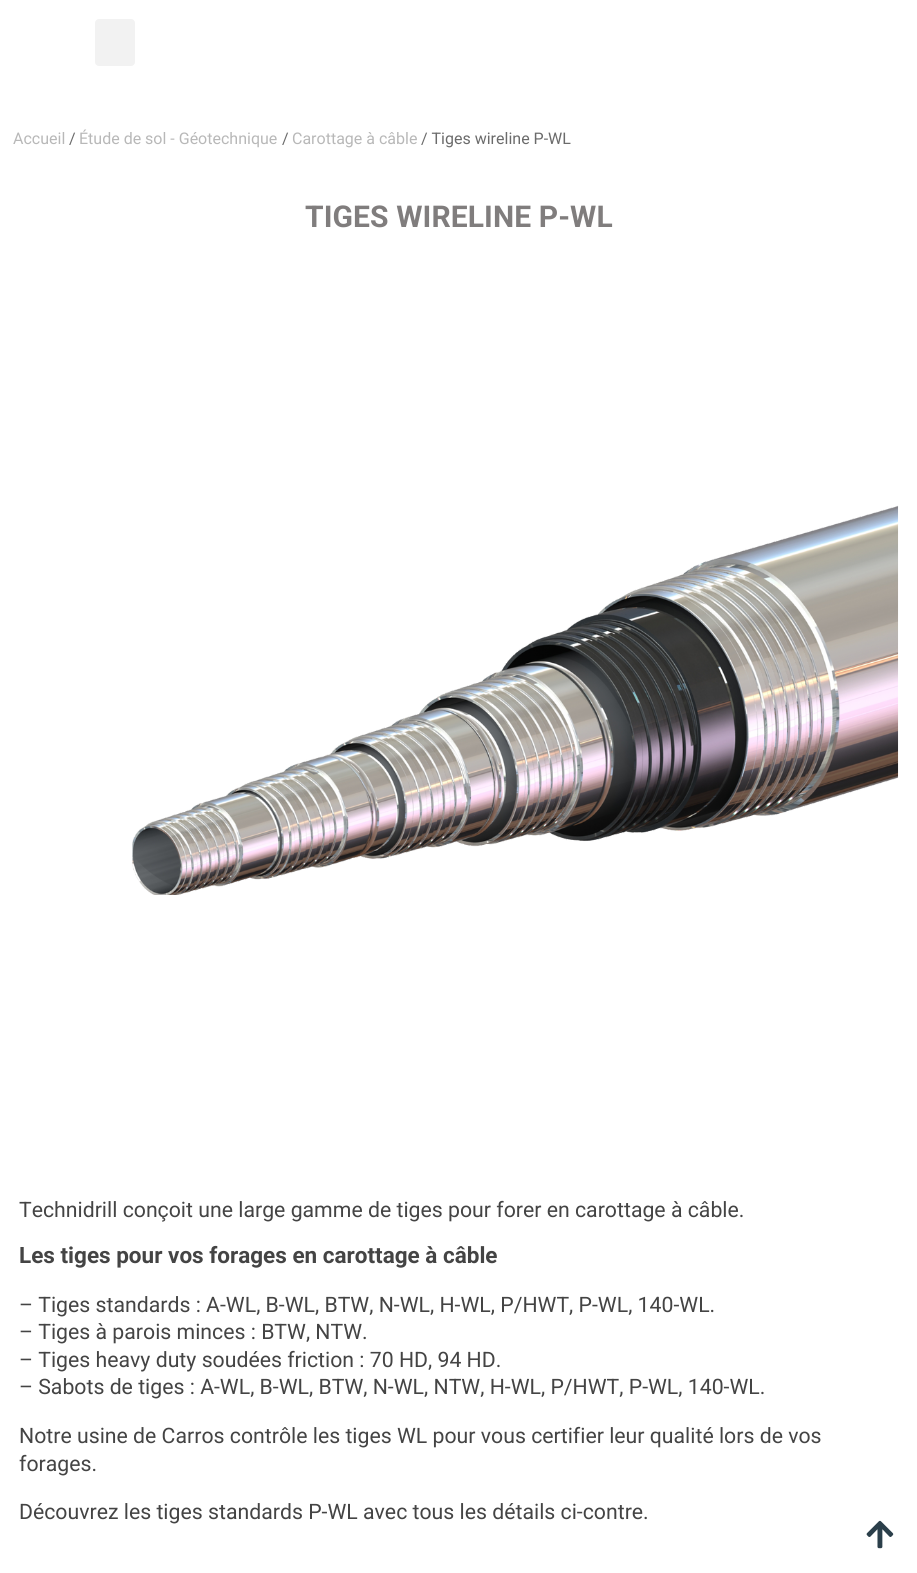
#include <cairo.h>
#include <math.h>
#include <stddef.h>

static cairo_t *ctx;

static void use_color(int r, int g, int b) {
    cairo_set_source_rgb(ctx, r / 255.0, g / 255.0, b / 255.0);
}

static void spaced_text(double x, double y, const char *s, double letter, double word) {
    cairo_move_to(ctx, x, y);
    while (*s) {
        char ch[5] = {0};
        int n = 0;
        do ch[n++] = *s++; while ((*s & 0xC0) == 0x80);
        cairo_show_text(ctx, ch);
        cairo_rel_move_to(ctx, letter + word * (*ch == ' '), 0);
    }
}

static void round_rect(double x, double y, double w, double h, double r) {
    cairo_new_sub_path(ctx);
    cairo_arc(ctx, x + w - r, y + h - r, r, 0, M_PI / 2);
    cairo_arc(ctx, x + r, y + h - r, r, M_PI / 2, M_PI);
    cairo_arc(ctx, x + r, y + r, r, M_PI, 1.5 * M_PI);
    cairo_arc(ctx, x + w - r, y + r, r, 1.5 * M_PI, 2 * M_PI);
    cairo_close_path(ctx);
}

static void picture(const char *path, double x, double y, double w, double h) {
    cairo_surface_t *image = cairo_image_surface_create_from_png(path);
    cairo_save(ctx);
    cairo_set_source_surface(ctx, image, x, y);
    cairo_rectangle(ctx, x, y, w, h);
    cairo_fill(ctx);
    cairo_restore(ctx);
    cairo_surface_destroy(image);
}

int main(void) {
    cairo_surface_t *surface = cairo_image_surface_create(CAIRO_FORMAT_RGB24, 917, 1573);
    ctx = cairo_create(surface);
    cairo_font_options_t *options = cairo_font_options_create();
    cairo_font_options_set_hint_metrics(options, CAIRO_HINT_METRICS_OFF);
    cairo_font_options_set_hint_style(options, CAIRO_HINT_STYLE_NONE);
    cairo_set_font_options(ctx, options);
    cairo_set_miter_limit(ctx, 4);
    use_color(255, 255, 255);
    cairo_paint(ctx);
    use_color(242, 242, 242);
    round_rect(95, 19, 40, 47, 4);
    cairo_fill(ctx);
    cairo_select_font_face(ctx, "Roboto", CAIRO_FONT_SLANT_NORMAL, CAIRO_FONT_WEIGHT_NORMAL);
    cairo_set_font_size(ctx, 16);
    use_color(184, 184, 184);
    cairo_move_to(ctx, 13, 144);
    cairo_show_text(ctx, "Accueil");
    use_color(107, 107, 107);
    cairo_move_to(ctx, 69, 144);
    cairo_show_text(ctx, "/");
    use_color(184, 184, 184);
    cairo_move_to(ctx, 79, 144);
    cairo_show_text(ctx, "Étude de sol - Géotechnique");
    use_color(107, 107, 107);
    cairo_move_to(ctx, 282, 144);
    cairo_show_text(ctx, "/");
    use_color(184, 184, 184);
    cairo_move_to(ctx, 292, 144);
    cairo_show_text(ctx, "Carottage à câble");
    use_color(107, 107, 107);
    cairo_move_to(ctx, 421, 144);
    cairo_show_text(ctx, "/ Tiges wireline P-WL");
    cairo_select_font_face(ctx, "Roboto", CAIRO_FONT_SLANT_NORMAL, CAIRO_FONT_WEIGHT_BOLD);
    cairo_set_font_size(ctx, 30);
    use_color(128, 125, 125);
    spaced_text(305, 227, "TIGES WIRELINE P-WL", 0.1, 0);
    picture("img1.png", 132, 505, 767, 390);
    cairo_select_font_face(ctx, "Roboto", CAIRO_FONT_SLANT_NORMAL, CAIRO_FONT_WEIGHT_NORMAL);
    cairo_set_font_size(ctx, 21.25);
    use_color(68, 68, 68);
    cairo_move_to(ctx, 19, 1217);
    cairo_show_text(ctx, "Technidrill conçoit une large gamme de tiges pour forer en carottage à câble.");
    cairo_select_font_face(ctx, "Roboto", CAIRO_FONT_SLANT_NORMAL, CAIRO_FONT_WEIGHT_BOLD);
    cairo_set_font_size(ctx, 22.5);
    cairo_move_to(ctx, 19, 1263);
    cairo_show_text(ctx, "Les tiges pour vos forages en carottage à câble");
    cairo_select_font_face(ctx, "Roboto", CAIRO_FONT_SLANT_NORMAL, CAIRO_FONT_WEIGHT_NORMAL);
    cairo_set_font_size(ctx, 21.25);
    cairo_move_to(ctx, 19, 1312);
    cairo_show_text(ctx, "– Tiges standards : A-WL, B-WL, BTW, N-WL, H-WL, P/HWT, P-WL, 140-WL.");
    cairo_move_to(ctx, 19, 1339);
    cairo_show_text(ctx, "– Tiges à parois minces : BTW, NTW.");
    cairo_move_to(ctx, 19, 1367);
    cairo_show_text(ctx, "– Tiges heavy duty soudées friction : 70 HD, 94 HD.");
    cairo_move_to(ctx, 19, 1394);
    cairo_show_text(ctx, "– Sabots de tiges : A-WL, B-WL, BTW, N-WL, NTW, H-WL, P/HWT, P-WL, 140-WL.");
    cairo_move_to(ctx, 19, 1443);
    cairo_show_text(ctx, "Notre usine de Carros contrôle les tiges WL pour vous certifier leur qualité lors de vos");
    cairo_move_to(ctx, 19, 1471);
    cairo_show_text(ctx, "forages.");
    cairo_move_to(ctx, 19, 1519);
    cairo_show_text(ctx, "Découvrez les tiges standards P-WL avec tous les détails ci-contre.");
    picture("img2.png", 866, 1520, 28, 29);
    cairo_surface_write_to_png(surface, "result.png");
    cairo_font_options_destroy(options);
    cairo_destroy(ctx);
    cairo_surface_destroy(surface);
    return 0;
}
